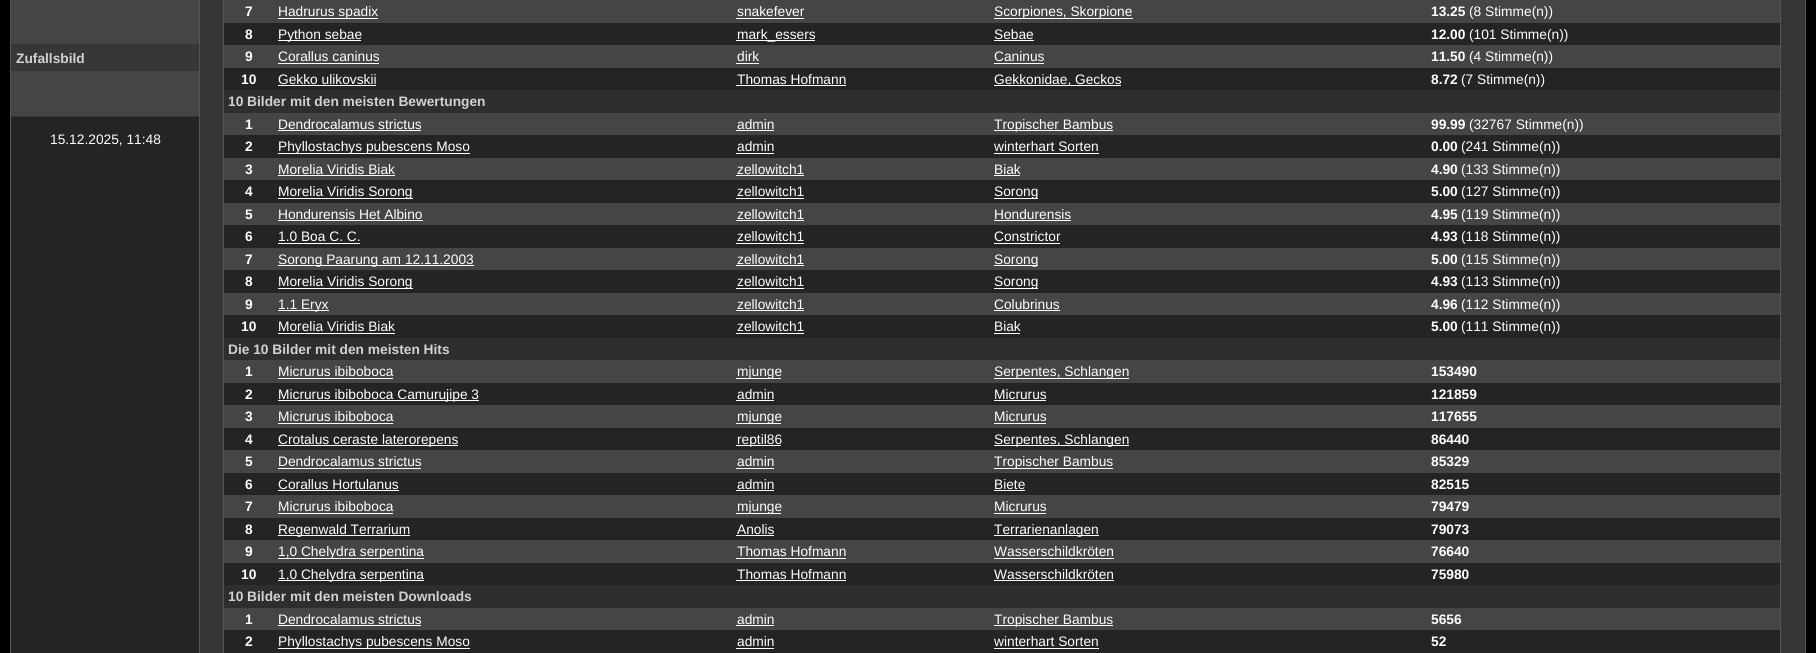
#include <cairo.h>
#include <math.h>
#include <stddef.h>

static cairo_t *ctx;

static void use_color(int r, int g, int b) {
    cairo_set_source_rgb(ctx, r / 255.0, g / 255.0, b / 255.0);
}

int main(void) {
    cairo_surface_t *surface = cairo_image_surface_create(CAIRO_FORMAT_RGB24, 1816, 653);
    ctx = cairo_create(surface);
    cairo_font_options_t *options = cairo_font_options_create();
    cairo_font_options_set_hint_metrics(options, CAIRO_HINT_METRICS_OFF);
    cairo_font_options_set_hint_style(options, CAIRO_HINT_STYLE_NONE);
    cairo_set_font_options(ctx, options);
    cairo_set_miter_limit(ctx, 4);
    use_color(0, 0, 0);
    cairo_paint(ctx);
    use_color(85, 85, 85);
    cairo_rectangle(ctx, 10, 0, 1796, 653);
    cairo_fill(ctx);
    use_color(54, 54, 54);
    cairo_rectangle(ctx, 200, 0, 1605, 653);
    cairo_fill(ctx);
    use_color(36, 36, 36);
    cairo_rectangle(ctx, 11, 117, 188, 536);
    cairo_fill(ctx);
    use_color(69, 69, 69);
    cairo_rectangle(ctx, 11, 0, 188, 44);
    cairo_fill(ctx);
    use_color(54, 54, 54);
    cairo_rectangle(ctx, 11, 44, 188, 1);
    cairo_fill(ctx);
    use_color(55, 55, 55);
    cairo_rectangle(ctx, 11, 45, 188, 25);
    cairo_fill(ctx);
    cairo_select_font_face(ctx, "Liberation Sans", CAIRO_FONT_SLANT_NORMAL, CAIRO_FONT_WEIGHT_BOLD);
    cairo_set_font_size(ctx, 13.75);
    use_color(210, 210, 210);
    cairo_move_to(ctx, 16, 63);
    cairo_show_text(ctx, "Zufallsbild");
    use_color(54, 54, 54);
    cairo_rectangle(ctx, 11, 70, 188, 1);
    cairo_fill(ctx);
    use_color(69, 69, 69);
    cairo_rectangle(ctx, 11, 71, 188, 45);
    cairo_fill(ctx);
    use_color(54, 54, 54);
    cairo_rectangle(ctx, 11, 116, 188, 1);
    cairo_fill(ctx);
    cairo_select_font_face(ctx, "Liberation Sans", CAIRO_FONT_SLANT_NORMAL, CAIRO_FONT_WEIGHT_NORMAL);
    use_color(255, 255, 255);
    cairo_move_to(ctx, 50, 144);
    cairo_show_text(ctx, "15.12.2025, 11:48");
    use_color(85, 85, 85);
    cairo_rectangle(ctx, 223, 0, 1558, 653);
    cairo_fill(ctx);
    use_color(69, 69, 69);
    cairo_rectangle(ctx, 224, 0, 1556, 23);
    cairo_fill(ctx);
    cairo_select_font_face(ctx, "Liberation Sans", CAIRO_FONT_SLANT_NORMAL, CAIRO_FONT_WEIGHT_BOLD);
    use_color(255, 255, 255);
    cairo_move_to(ctx, 245, 16);
    cairo_show_text(ctx, "7");
    cairo_rectangle(ctx, 278, 18, 100, 1);
    cairo_fill(ctx);
    cairo_select_font_face(ctx, "Liberation Sans", CAIRO_FONT_SLANT_NORMAL, CAIRO_FONT_WEIGHT_NORMAL);
    cairo_move_to(ctx, 278, 16);
    cairo_show_text(ctx, "Hadrurus spadix");
    cairo_move_to(ctx, 737, 16);
    cairo_show_text(ctx, "snakefever");
    cairo_rectangle(ctx, 736, 18, 68, 1);
    cairo_fill(ctx);
    cairo_rectangle(ctx, 994, 18, 139, 1);
    cairo_fill(ctx);
    cairo_move_to(ctx, 994, 16);
    cairo_show_text(ctx, "Scorpiones, Skorpione");
    cairo_select_font_face(ctx, "Liberation Sans", CAIRO_FONT_SLANT_NORMAL, CAIRO_FONT_WEIGHT_BOLD);
    cairo_move_to(ctx, 1431, 16);
    cairo_show_text(ctx, "13.25");
    cairo_select_font_face(ctx, "Liberation Sans", CAIRO_FONT_SLANT_NORMAL, CAIRO_FONT_WEIGHT_NORMAL);
    cairo_move_to(ctx, 1469, 16);
    cairo_show_text(ctx, "(8 Stimme(n))");
    use_color(36, 36, 36);
    cairo_rectangle(ctx, 224, 23, 1556, 22);
    cairo_fill(ctx);
    cairo_select_font_face(ctx, "Liberation Sans", CAIRO_FONT_SLANT_NORMAL, CAIRO_FONT_WEIGHT_BOLD);
    use_color(255, 255, 255);
    cairo_move_to(ctx, 245, 39);
    cairo_show_text(ctx, "8");
    cairo_rectangle(ctx, 278, 40, 83, 1);
    cairo_fill(ctx);
    cairo_select_font_face(ctx, "Liberation Sans", CAIRO_FONT_SLANT_NORMAL, CAIRO_FONT_WEIGHT_NORMAL);
    cairo_move_to(ctx, 278, 39);
    cairo_show_text(ctx, "Python sebae");
    cairo_rectangle(ctx, 736, 40, 79, 1);
    cairo_fill(ctx);
    cairo_move_to(ctx, 737, 39);
    cairo_show_text(ctx, "mark_essers");
    cairo_move_to(ctx, 994, 39);
    cairo_show_text(ctx, "Sebae");
    cairo_rectangle(ctx, 994, 40, 40, 1);
    cairo_fill(ctx);
    cairo_select_font_face(ctx, "Liberation Sans", CAIRO_FONT_SLANT_NORMAL, CAIRO_FONT_WEIGHT_BOLD);
    cairo_move_to(ctx, 1431, 39);
    cairo_show_text(ctx, "12.00");
    cairo_select_font_face(ctx, "Liberation Sans", CAIRO_FONT_SLANT_NORMAL, CAIRO_FONT_WEIGHT_NORMAL);
    cairo_move_to(ctx, 1469, 39);
    cairo_show_text(ctx, "(101 Stimme(n))");
    use_color(69, 69, 69);
    cairo_rectangle(ctx, 224, 45, 1556, 23);
    cairo_fill(ctx);
    cairo_select_font_face(ctx, "Liberation Sans", CAIRO_FONT_SLANT_NORMAL, CAIRO_FONT_WEIGHT_BOLD);
    use_color(255, 255, 255);
    cairo_move_to(ctx, 245, 61);
    cairo_show_text(ctx, "9");
    cairo_select_font_face(ctx, "Liberation Sans", CAIRO_FONT_SLANT_NORMAL, CAIRO_FONT_WEIGHT_NORMAL);
    cairo_move_to(ctx, 278, 61);
    cairo_show_text(ctx, "Corallus caninus");
    cairo_rectangle(ctx, 278, 63, 101, 1);
    cairo_fill(ctx);
    cairo_move_to(ctx, 737, 61);
    cairo_show_text(ctx, "dirk");
    cairo_rectangle(ctx, 736, 63, 23, 1);
    cairo_fill(ctx);
    cairo_move_to(ctx, 994, 61);
    cairo_show_text(ctx, "Caninus");
    cairo_rectangle(ctx, 994, 63, 50, 1);
    cairo_fill(ctx);
    cairo_select_font_face(ctx, "Liberation Sans", CAIRO_FONT_SLANT_NORMAL, CAIRO_FONT_WEIGHT_BOLD);
    cairo_move_to(ctx, 1431, 61);
    cairo_show_text(ctx, "11.50");
    cairo_select_font_face(ctx, "Liberation Sans", CAIRO_FONT_SLANT_NORMAL, CAIRO_FONT_WEIGHT_NORMAL);
    cairo_move_to(ctx, 1469, 61);
    cairo_show_text(ctx, "(4 Stimme(n))");
    use_color(36, 36, 36);
    cairo_rectangle(ctx, 224, 68, 1556, 22);
    cairo_fill(ctx);
    cairo_select_font_face(ctx, "Liberation Sans", CAIRO_FONT_SLANT_NORMAL, CAIRO_FONT_WEIGHT_BOLD);
    use_color(255, 255, 255);
    cairo_move_to(ctx, 241, 84);
    cairo_show_text(ctx, "10");
    cairo_select_font_face(ctx, "Liberation Sans", CAIRO_FONT_SLANT_NORMAL, CAIRO_FONT_WEIGHT_NORMAL);
    cairo_move_to(ctx, 278, 84);
    cairo_show_text(ctx, "Gekko ulikovskii");
    cairo_rectangle(ctx, 278, 85, 98, 1);
    cairo_fill(ctx);
    cairo_move_to(ctx, 737, 84);
    cairo_show_text(ctx, "Thomas Hofmann");
    cairo_rectangle(ctx, 736, 85, 110, 1);
    cairo_fill(ctx);
    cairo_rectangle(ctx, 994, 85, 127, 1);
    cairo_fill(ctx);
    cairo_move_to(ctx, 994, 84);
    cairo_show_text(ctx, "Gekkonidae, Geckos");
    cairo_select_font_face(ctx, "Liberation Sans", CAIRO_FONT_SLANT_NORMAL, CAIRO_FONT_WEIGHT_BOLD);
    cairo_move_to(ctx, 1431, 84);
    cairo_show_text(ctx, "8.72");
    cairo_select_font_face(ctx, "Liberation Sans", CAIRO_FONT_SLANT_NORMAL, CAIRO_FONT_WEIGHT_NORMAL);
    cairo_move_to(ctx, 1461, 84);
    cairo_show_text(ctx, "(7 Stimme(n))");
    use_color(46, 46, 46);
    cairo_rectangle(ctx, 224, 90, 1556, 23);
    cairo_fill(ctx);
    cairo_select_font_face(ctx, "Liberation Sans", CAIRO_FONT_SLANT_NORMAL, CAIRO_FONT_WEIGHT_BOLD);
    use_color(210, 210, 210);
    cairo_move_to(ctx, 228, 106);
    cairo_show_text(ctx, "10 Bilder mit den meisten Bewertungen");
    use_color(69, 69, 69);
    cairo_rectangle(ctx, 224, 113, 1556, 22);
    cairo_fill(ctx);
    use_color(255, 255, 255);
    cairo_move_to(ctx, 245, 129);
    cairo_show_text(ctx, "1");
    cairo_select_font_face(ctx, "Liberation Sans", CAIRO_FONT_SLANT_NORMAL, CAIRO_FONT_WEIGHT_NORMAL);
    cairo_move_to(ctx, 278, 129);
    cairo_show_text(ctx, "Dendrocalamus strictus");
    cairo_rectangle(ctx, 278, 130, 143, 1);
    cairo_fill(ctx);
    cairo_move_to(ctx, 737, 129);
    cairo_show_text(ctx, "admin");
    cairo_rectangle(ctx, 736, 130, 38, 1);
    cairo_fill(ctx);
    cairo_rectangle(ctx, 994, 130, 119, 1);
    cairo_fill(ctx);
    cairo_move_to(ctx, 994, 129);
    cairo_show_text(ctx, "Tropischer Bambus");
    cairo_select_font_face(ctx, "Liberation Sans", CAIRO_FONT_SLANT_NORMAL, CAIRO_FONT_WEIGHT_BOLD);
    cairo_move_to(ctx, 1431, 129);
    cairo_show_text(ctx, "99.99");
    cairo_select_font_face(ctx, "Liberation Sans", CAIRO_FONT_SLANT_NORMAL, CAIRO_FONT_WEIGHT_NORMAL);
    cairo_move_to(ctx, 1469, 129);
    cairo_show_text(ctx, "(32767 Stimme(n))");
    use_color(36, 36, 36);
    cairo_rectangle(ctx, 224, 135, 1556, 23);
    cairo_fill(ctx);
    cairo_select_font_face(ctx, "Liberation Sans", CAIRO_FONT_SLANT_NORMAL, CAIRO_FONT_WEIGHT_BOLD);
    use_color(255, 255, 255);
    cairo_move_to(ctx, 245, 151);
    cairo_show_text(ctx, "2");
    cairo_rectangle(ctx, 278, 153, 192, 1);
    cairo_fill(ctx);
    cairo_select_font_face(ctx, "Liberation Sans", CAIRO_FONT_SLANT_NORMAL, CAIRO_FONT_WEIGHT_NORMAL);
    cairo_move_to(ctx, 278, 151);
    cairo_show_text(ctx, "Phyllostachys pubescens Moso");
    cairo_move_to(ctx, 737, 151);
    cairo_show_text(ctx, "admin");
    cairo_rectangle(ctx, 736, 153, 38, 1);
    cairo_fill(ctx);
    cairo_move_to(ctx, 994, 151);
    cairo_show_text(ctx, "winterhart Sorten");
    cairo_rectangle(ctx, 994, 153, 105, 1);
    cairo_fill(ctx);
    cairo_select_font_face(ctx, "Liberation Sans", CAIRO_FONT_SLANT_NORMAL, CAIRO_FONT_WEIGHT_BOLD);
    cairo_move_to(ctx, 1431, 151);
    cairo_show_text(ctx, "0.00");
    cairo_select_font_face(ctx, "Liberation Sans", CAIRO_FONT_SLANT_NORMAL, CAIRO_FONT_WEIGHT_NORMAL);
    cairo_move_to(ctx, 1461, 151);
    cairo_show_text(ctx, "(241 Stimme(n))");
    use_color(69, 69, 69);
    cairo_rectangle(ctx, 224, 158, 1556, 22);
    cairo_fill(ctx);
    cairo_select_font_face(ctx, "Liberation Sans", CAIRO_FONT_SLANT_NORMAL, CAIRO_FONT_WEIGHT_BOLD);
    use_color(255, 255, 255);
    cairo_move_to(ctx, 245, 174);
    cairo_show_text(ctx, "3");
    cairo_select_font_face(ctx, "Liberation Sans", CAIRO_FONT_SLANT_NORMAL, CAIRO_FONT_WEIGHT_NORMAL);
    cairo_move_to(ctx, 278, 174);
    cairo_show_text(ctx, "Morelia Viridis Biak");
    cairo_rectangle(ctx, 278, 175, 117, 1);
    cairo_fill(ctx);
    cairo_move_to(ctx, 737, 174);
    cairo_show_text(ctx, "zellowitch1");
    cairo_rectangle(ctx, 736, 175, 68, 1);
    cairo_fill(ctx);
    cairo_move_to(ctx, 994, 174);
    cairo_show_text(ctx, "Biak");
    cairo_rectangle(ctx, 994, 175, 26, 1);
    cairo_fill(ctx);
    cairo_select_font_face(ctx, "Liberation Sans", CAIRO_FONT_SLANT_NORMAL, CAIRO_FONT_WEIGHT_BOLD);
    cairo_move_to(ctx, 1431, 174);
    cairo_show_text(ctx, "4.90");
    cairo_select_font_face(ctx, "Liberation Sans", CAIRO_FONT_SLANT_NORMAL, CAIRO_FONT_WEIGHT_NORMAL);
    cairo_move_to(ctx, 1461, 174);
    cairo_show_text(ctx, "(133 Stimme(n))");
    use_color(36, 36, 36);
    cairo_rectangle(ctx, 224, 180, 1556, 23);
    cairo_fill(ctx);
    cairo_select_font_face(ctx, "Liberation Sans", CAIRO_FONT_SLANT_NORMAL, CAIRO_FONT_WEIGHT_BOLD);
    use_color(255, 255, 255);
    cairo_move_to(ctx, 245, 196);
    cairo_show_text(ctx, "4");
    cairo_rectangle(ctx, 278, 198, 135, 1);
    cairo_fill(ctx);
    cairo_select_font_face(ctx, "Liberation Sans", CAIRO_FONT_SLANT_NORMAL, CAIRO_FONT_WEIGHT_NORMAL);
    cairo_move_to(ctx, 278, 196);
    cairo_show_text(ctx, "Morelia Viridis Sorong");
    cairo_move_to(ctx, 737, 196);
    cairo_show_text(ctx, "zellowitch1");
    cairo_rectangle(ctx, 736, 198, 68, 1);
    cairo_fill(ctx);
    cairo_rectangle(ctx, 994, 198, 44, 1);
    cairo_fill(ctx);
    cairo_move_to(ctx, 994, 196);
    cairo_show_text(ctx, "Sorong");
    cairo_select_font_face(ctx, "Liberation Sans", CAIRO_FONT_SLANT_NORMAL, CAIRO_FONT_WEIGHT_BOLD);
    cairo_move_to(ctx, 1431, 196);
    cairo_show_text(ctx, "5.00");
    cairo_select_font_face(ctx, "Liberation Sans", CAIRO_FONT_SLANT_NORMAL, CAIRO_FONT_WEIGHT_NORMAL);
    cairo_move_to(ctx, 1461, 196);
    cairo_show_text(ctx, "(127 Stimme(n))");
    use_color(69, 69, 69);
    cairo_rectangle(ctx, 224, 203, 1556, 22);
    cairo_fill(ctx);
    cairo_select_font_face(ctx, "Liberation Sans", CAIRO_FONT_SLANT_NORMAL, CAIRO_FONT_WEIGHT_BOLD);
    use_color(255, 255, 255);
    cairo_move_to(ctx, 245, 219);
    cairo_show_text(ctx, "5");
    cairo_select_font_face(ctx, "Liberation Sans", CAIRO_FONT_SLANT_NORMAL, CAIRO_FONT_WEIGHT_NORMAL);
    cairo_move_to(ctx, 278, 219);
    cairo_show_text(ctx, "Hondurensis Het Albino");
    cairo_rectangle(ctx, 278, 220, 145, 1);
    cairo_fill(ctx);
    cairo_move_to(ctx, 737, 219);
    cairo_show_text(ctx, "zellowitch1");
    cairo_rectangle(ctx, 736, 220, 68, 1);
    cairo_fill(ctx);
    cairo_move_to(ctx, 994, 219);
    cairo_show_text(ctx, "Hondurensis");
    cairo_rectangle(ctx, 994, 220, 77, 1);
    cairo_fill(ctx);
    cairo_select_font_face(ctx, "Liberation Sans", CAIRO_FONT_SLANT_NORMAL, CAIRO_FONT_WEIGHT_BOLD);
    cairo_move_to(ctx, 1431, 219);
    cairo_show_text(ctx, "4.95");
    cairo_select_font_face(ctx, "Liberation Sans", CAIRO_FONT_SLANT_NORMAL, CAIRO_FONT_WEIGHT_NORMAL);
    cairo_move_to(ctx, 1461, 219);
    cairo_show_text(ctx, "(119 Stimme(n))");
    use_color(36, 36, 36);
    cairo_rectangle(ctx, 224, 225, 1556, 23);
    cairo_fill(ctx);
    cairo_select_font_face(ctx, "Liberation Sans", CAIRO_FONT_SLANT_NORMAL, CAIRO_FONT_WEIGHT_BOLD);
    use_color(255, 255, 255);
    cairo_move_to(ctx, 245, 241);
    cairo_show_text(ctx, "6");
    cairo_select_font_face(ctx, "Liberation Sans", CAIRO_FONT_SLANT_NORMAL, CAIRO_FONT_WEIGHT_NORMAL);
    cairo_move_to(ctx, 278, 241);
    cairo_show_text(ctx, "1.0 Boa C. C.");
    cairo_rectangle(ctx, 278, 243, 82, 1);
    cairo_fill(ctx);
    cairo_move_to(ctx, 737, 241);
    cairo_show_text(ctx, "zellowitch1");
    cairo_rectangle(ctx, 736, 243, 68, 1);
    cairo_fill(ctx);
    cairo_move_to(ctx, 994, 241);
    cairo_show_text(ctx, "Constrictor");
    cairo_rectangle(ctx, 994, 243, 66, 1);
    cairo_fill(ctx);
    cairo_select_font_face(ctx, "Liberation Sans", CAIRO_FONT_SLANT_NORMAL, CAIRO_FONT_WEIGHT_BOLD);
    cairo_move_to(ctx, 1431, 241);
    cairo_show_text(ctx, "4.93");
    cairo_select_font_face(ctx, "Liberation Sans", CAIRO_FONT_SLANT_NORMAL, CAIRO_FONT_WEIGHT_NORMAL);
    cairo_move_to(ctx, 1461, 241);
    cairo_show_text(ctx, "(118 Stimme(n))");
    use_color(69, 69, 69);
    cairo_rectangle(ctx, 224, 248, 1556, 22);
    cairo_fill(ctx);
    cairo_select_font_face(ctx, "Liberation Sans", CAIRO_FONT_SLANT_NORMAL, CAIRO_FONT_WEIGHT_BOLD);
    use_color(255, 255, 255);
    cairo_move_to(ctx, 245, 264);
    cairo_show_text(ctx, "7");
    cairo_rectangle(ctx, 278, 265, 196, 1);
    cairo_fill(ctx);
    cairo_select_font_face(ctx, "Liberation Sans", CAIRO_FONT_SLANT_NORMAL, CAIRO_FONT_WEIGHT_NORMAL);
    cairo_move_to(ctx, 278, 264);
    cairo_show_text(ctx, "Sorong Paarung am 12.11.2003");
    cairo_move_to(ctx, 737, 264);
    cairo_show_text(ctx, "zellowitch1");
    cairo_rectangle(ctx, 736, 265, 68, 1);
    cairo_fill(ctx);
    cairo_rectangle(ctx, 994, 265, 44, 1);
    cairo_fill(ctx);
    cairo_move_to(ctx, 994, 264);
    cairo_show_text(ctx, "Sorong");
    cairo_select_font_face(ctx, "Liberation Sans", CAIRO_FONT_SLANT_NORMAL, CAIRO_FONT_WEIGHT_BOLD);
    cairo_move_to(ctx, 1431, 264);
    cairo_show_text(ctx, "5.00");
    cairo_select_font_face(ctx, "Liberation Sans", CAIRO_FONT_SLANT_NORMAL, CAIRO_FONT_WEIGHT_NORMAL);
    cairo_move_to(ctx, 1461, 264);
    cairo_show_text(ctx, "(115 Stimme(n))");
    use_color(36, 36, 36);
    cairo_rectangle(ctx, 224, 270, 1556, 23);
    cairo_fill(ctx);
    cairo_select_font_face(ctx, "Liberation Sans", CAIRO_FONT_SLANT_NORMAL, CAIRO_FONT_WEIGHT_BOLD);
    use_color(255, 255, 255);
    cairo_move_to(ctx, 245, 286);
    cairo_show_text(ctx, "8");
    cairo_rectangle(ctx, 278, 288, 135, 1);
    cairo_fill(ctx);
    cairo_select_font_face(ctx, "Liberation Sans", CAIRO_FONT_SLANT_NORMAL, CAIRO_FONT_WEIGHT_NORMAL);
    cairo_move_to(ctx, 278, 286);
    cairo_show_text(ctx, "Morelia Viridis Sorong");
    cairo_move_to(ctx, 737, 286);
    cairo_show_text(ctx, "zellowitch1");
    cairo_rectangle(ctx, 736, 288, 68, 1);
    cairo_fill(ctx);
    cairo_rectangle(ctx, 994, 288, 44, 1);
    cairo_fill(ctx);
    cairo_move_to(ctx, 994, 286);
    cairo_show_text(ctx, "Sorong");
    cairo_select_font_face(ctx, "Liberation Sans", CAIRO_FONT_SLANT_NORMAL, CAIRO_FONT_WEIGHT_BOLD);
    cairo_move_to(ctx, 1431, 286);
    cairo_show_text(ctx, "4.93");
    cairo_select_font_face(ctx, "Liberation Sans", CAIRO_FONT_SLANT_NORMAL, CAIRO_FONT_WEIGHT_NORMAL);
    cairo_move_to(ctx, 1461, 286);
    cairo_show_text(ctx, "(113 Stimme(n))");
    use_color(69, 69, 69);
    cairo_rectangle(ctx, 224, 293, 1556, 22);
    cairo_fill(ctx);
    cairo_select_font_face(ctx, "Liberation Sans", CAIRO_FONT_SLANT_NORMAL, CAIRO_FONT_WEIGHT_BOLD);
    use_color(255, 255, 255);
    cairo_move_to(ctx, 245, 309);
    cairo_show_text(ctx, "9");
    cairo_rectangle(ctx, 278, 310, 51, 1);
    cairo_fill(ctx);
    cairo_select_font_face(ctx, "Liberation Sans", CAIRO_FONT_SLANT_NORMAL, CAIRO_FONT_WEIGHT_NORMAL);
    cairo_move_to(ctx, 278, 309);
    cairo_show_text(ctx, "1.1 Eryx");
    cairo_move_to(ctx, 737, 309);
    cairo_show_text(ctx, "zellowitch1");
    cairo_rectangle(ctx, 736, 310, 68, 1);
    cairo_fill(ctx);
    cairo_move_to(ctx, 994, 309);
    cairo_show_text(ctx, "Colubrinus");
    cairo_rectangle(ctx, 994, 310, 66, 1);
    cairo_fill(ctx);
    cairo_select_font_face(ctx, "Liberation Sans", CAIRO_FONT_SLANT_NORMAL, CAIRO_FONT_WEIGHT_BOLD);
    cairo_move_to(ctx, 1431, 309);
    cairo_show_text(ctx, "4.96");
    cairo_select_font_face(ctx, "Liberation Sans", CAIRO_FONT_SLANT_NORMAL, CAIRO_FONT_WEIGHT_NORMAL);
    cairo_move_to(ctx, 1461, 309);
    cairo_show_text(ctx, "(112 Stimme(n))");
    use_color(36, 36, 36);
    cairo_rectangle(ctx, 224, 315, 1556, 23);
    cairo_fill(ctx);
    cairo_select_font_face(ctx, "Liberation Sans", CAIRO_FONT_SLANT_NORMAL, CAIRO_FONT_WEIGHT_BOLD);
    use_color(255, 255, 255);
    cairo_move_to(ctx, 241, 331);
    cairo_show_text(ctx, "10");
    cairo_select_font_face(ctx, "Liberation Sans", CAIRO_FONT_SLANT_NORMAL, CAIRO_FONT_WEIGHT_NORMAL);
    cairo_move_to(ctx, 278, 331);
    cairo_show_text(ctx, "Morelia Viridis Biak");
    cairo_rectangle(ctx, 278, 333, 117, 1);
    cairo_fill(ctx);
    cairo_move_to(ctx, 737, 331);
    cairo_show_text(ctx, "zellowitch1");
    cairo_rectangle(ctx, 736, 333, 68, 1);
    cairo_fill(ctx);
    cairo_move_to(ctx, 994, 331);
    cairo_show_text(ctx, "Biak");
    cairo_rectangle(ctx, 994, 333, 26, 1);
    cairo_fill(ctx);
    cairo_select_font_face(ctx, "Liberation Sans", CAIRO_FONT_SLANT_NORMAL, CAIRO_FONT_WEIGHT_BOLD);
    cairo_move_to(ctx, 1431, 331);
    cairo_show_text(ctx, "5.00");
    cairo_select_font_face(ctx, "Liberation Sans", CAIRO_FONT_SLANT_NORMAL, CAIRO_FONT_WEIGHT_NORMAL);
    cairo_move_to(ctx, 1461, 331);
    cairo_show_text(ctx, "(111 Stimme(n))");
    use_color(46, 46, 46);
    cairo_rectangle(ctx, 224, 338, 1556, 22);
    cairo_fill(ctx);
    cairo_select_font_face(ctx, "Liberation Sans", CAIRO_FONT_SLANT_NORMAL, CAIRO_FONT_WEIGHT_BOLD);
    use_color(210, 210, 210);
    cairo_move_to(ctx, 228, 354);
    cairo_show_text(ctx, "Die 10 Bilder mit den meisten Hits");
    use_color(69, 69, 69);
    cairo_rectangle(ctx, 224, 360, 1556, 23);
    cairo_fill(ctx);
    use_color(255, 255, 255);
    cairo_move_to(ctx, 245, 376);
    cairo_show_text(ctx, "1");
    cairo_select_font_face(ctx, "Liberation Sans", CAIRO_FONT_SLANT_NORMAL, CAIRO_FONT_WEIGHT_NORMAL);
    cairo_move_to(ctx, 278, 376);
    cairo_show_text(ctx, "Micrurus ibiboboca");
    cairo_rectangle(ctx, 278, 378, 115, 1);
    cairo_fill(ctx);
    cairo_rectangle(ctx, 736, 378, 45, 1);
    cairo_fill(ctx);
    cairo_move_to(ctx, 737, 376);
    cairo_show_text(ctx, "mjunge");
    cairo_rectangle(ctx, 994, 378, 135, 1);
    cairo_fill(ctx);
    cairo_move_to(ctx, 994, 376);
    cairo_show_text(ctx, "Serpentes, Schlangen");
    cairo_select_font_face(ctx, "Liberation Sans", CAIRO_FONT_SLANT_NORMAL, CAIRO_FONT_WEIGHT_BOLD);
    cairo_move_to(ctx, 1431, 376);
    cairo_show_text(ctx, "153490");
    use_color(36, 36, 36);
    cairo_rectangle(ctx, 224, 383, 1556, 22);
    cairo_fill(ctx);
    use_color(255, 255, 255);
    cairo_move_to(ctx, 245, 399);
    cairo_show_text(ctx, "2");
    cairo_rectangle(ctx, 278, 400, 201, 1);
    cairo_fill(ctx);
    cairo_select_font_face(ctx, "Liberation Sans", CAIRO_FONT_SLANT_NORMAL, CAIRO_FONT_WEIGHT_NORMAL);
    cairo_move_to(ctx, 278, 399);
    cairo_show_text(ctx, "Micrurus ibiboboca Camurujipe 3");
    cairo_move_to(ctx, 737, 399);
    cairo_show_text(ctx, "admin");
    cairo_rectangle(ctx, 736, 400, 38, 1);
    cairo_fill(ctx);
    cairo_move_to(ctx, 994, 399);
    cairo_show_text(ctx, "Micrurus");
    cairo_rectangle(ctx, 994, 400, 52, 1);
    cairo_fill(ctx);
    cairo_select_font_face(ctx, "Liberation Sans", CAIRO_FONT_SLANT_NORMAL, CAIRO_FONT_WEIGHT_BOLD);
    cairo_move_to(ctx, 1431, 399);
    cairo_show_text(ctx, "121859");
    use_color(69, 69, 69);
    cairo_rectangle(ctx, 224, 405, 1556, 23);
    cairo_fill(ctx);
    use_color(255, 255, 255);
    cairo_move_to(ctx, 245, 421);
    cairo_show_text(ctx, "3");
    cairo_select_font_face(ctx, "Liberation Sans", CAIRO_FONT_SLANT_NORMAL, CAIRO_FONT_WEIGHT_NORMAL);
    cairo_move_to(ctx, 278, 421);
    cairo_show_text(ctx, "Micrurus ibiboboca");
    cairo_rectangle(ctx, 278, 423, 115, 1);
    cairo_fill(ctx);
    cairo_rectangle(ctx, 736, 423, 45, 1);
    cairo_fill(ctx);
    cairo_move_to(ctx, 737, 421);
    cairo_show_text(ctx, "mjunge");
    cairo_move_to(ctx, 994, 421);
    cairo_show_text(ctx, "Micrurus");
    cairo_rectangle(ctx, 994, 423, 52, 1);
    cairo_fill(ctx);
    cairo_select_font_face(ctx, "Liberation Sans", CAIRO_FONT_SLANT_NORMAL, CAIRO_FONT_WEIGHT_BOLD);
    cairo_move_to(ctx, 1431, 421);
    cairo_show_text(ctx, "117655");
    use_color(36, 36, 36);
    cairo_rectangle(ctx, 224, 428, 1556, 22);
    cairo_fill(ctx);
    use_color(255, 255, 255);
    cairo_move_to(ctx, 245, 444);
    cairo_show_text(ctx, "4");
    cairo_rectangle(ctx, 278, 445, 180, 1);
    cairo_fill(ctx);
    cairo_select_font_face(ctx, "Liberation Sans", CAIRO_FONT_SLANT_NORMAL, CAIRO_FONT_WEIGHT_NORMAL);
    cairo_move_to(ctx, 278, 444);
    cairo_show_text(ctx, "Crotalus ceraste laterorepens");
    cairo_rectangle(ctx, 736, 445, 45, 1);
    cairo_fill(ctx);
    cairo_move_to(ctx, 737, 444);
    cairo_show_text(ctx, "reptil86");
    cairo_rectangle(ctx, 994, 445, 135, 1);
    cairo_fill(ctx);
    cairo_move_to(ctx, 994, 444);
    cairo_show_text(ctx, "Serpentes, Schlangen");
    cairo_select_font_face(ctx, "Liberation Sans", CAIRO_FONT_SLANT_NORMAL, CAIRO_FONT_WEIGHT_BOLD);
    cairo_move_to(ctx, 1431, 444);
    cairo_show_text(ctx, "86440");
    use_color(69, 69, 69);
    cairo_rectangle(ctx, 224, 450, 1556, 23);
    cairo_fill(ctx);
    use_color(255, 255, 255);
    cairo_move_to(ctx, 245, 466);
    cairo_show_text(ctx, "5");
    cairo_select_font_face(ctx, "Liberation Sans", CAIRO_FONT_SLANT_NORMAL, CAIRO_FONT_WEIGHT_NORMAL);
    cairo_move_to(ctx, 278, 466);
    cairo_show_text(ctx, "Dendrocalamus strictus");
    cairo_rectangle(ctx, 278, 468, 143, 1);
    cairo_fill(ctx);
    cairo_move_to(ctx, 737, 466);
    cairo_show_text(ctx, "admin");
    cairo_rectangle(ctx, 736, 468, 38, 1);
    cairo_fill(ctx);
    cairo_rectangle(ctx, 994, 468, 119, 1);
    cairo_fill(ctx);
    cairo_move_to(ctx, 994, 466);
    cairo_show_text(ctx, "Tropischer Bambus");
    cairo_select_font_face(ctx, "Liberation Sans", CAIRO_FONT_SLANT_NORMAL, CAIRO_FONT_WEIGHT_BOLD);
    cairo_move_to(ctx, 1431, 466);
    cairo_show_text(ctx, "85329");
    use_color(36, 36, 36);
    cairo_rectangle(ctx, 224, 473, 1556, 22);
    cairo_fill(ctx);
    use_color(255, 255, 255);
    cairo_move_to(ctx, 245, 489);
    cairo_show_text(ctx, "6");
    cairo_select_font_face(ctx, "Liberation Sans", CAIRO_FONT_SLANT_NORMAL, CAIRO_FONT_WEIGHT_NORMAL);
    cairo_move_to(ctx, 278, 489);
    cairo_show_text(ctx, "Corallus Hortulanus");
    cairo_rectangle(ctx, 278, 490, 121, 1);
    cairo_fill(ctx);
    cairo_move_to(ctx, 737, 489);
    cairo_show_text(ctx, "admin");
    cairo_rectangle(ctx, 736, 490, 38, 1);
    cairo_fill(ctx);
    cairo_move_to(ctx, 994, 489);
    cairo_show_text(ctx, "Biete");
    cairo_rectangle(ctx, 994, 490, 31, 1);
    cairo_fill(ctx);
    cairo_select_font_face(ctx, "Liberation Sans", CAIRO_FONT_SLANT_NORMAL, CAIRO_FONT_WEIGHT_BOLD);
    cairo_move_to(ctx, 1431, 489);
    cairo_show_text(ctx, "82515");
    use_color(69, 69, 69);
    cairo_rectangle(ctx, 224, 495, 1556, 23);
    cairo_fill(ctx);
    use_color(255, 255, 255);
    cairo_move_to(ctx, 245, 511);
    cairo_show_text(ctx, "7");
    cairo_select_font_face(ctx, "Liberation Sans", CAIRO_FONT_SLANT_NORMAL, CAIRO_FONT_WEIGHT_NORMAL);
    cairo_move_to(ctx, 278, 511);
    cairo_show_text(ctx, "Micrurus ibiboboca");
    cairo_rectangle(ctx, 278, 513, 115, 1);
    cairo_fill(ctx);
    cairo_rectangle(ctx, 736, 513, 45, 1);
    cairo_fill(ctx);
    cairo_move_to(ctx, 737, 511);
    cairo_show_text(ctx, "mjunge");
    cairo_move_to(ctx, 994, 511);
    cairo_show_text(ctx, "Micrurus");
    cairo_rectangle(ctx, 994, 513, 52, 1);
    cairo_fill(ctx);
    cairo_select_font_face(ctx, "Liberation Sans", CAIRO_FONT_SLANT_NORMAL, CAIRO_FONT_WEIGHT_BOLD);
    cairo_move_to(ctx, 1431, 511);
    cairo_show_text(ctx, "79479");
    use_color(36, 36, 36);
    cairo_rectangle(ctx, 224, 518, 1556, 22);
    cairo_fill(ctx);
    use_color(255, 255, 255);
    cairo_move_to(ctx, 245, 534);
    cairo_show_text(ctx, "8");
    cairo_rectangle(ctx, 278, 535, 132, 1);
    cairo_fill(ctx);
    cairo_select_font_face(ctx, "Liberation Sans", CAIRO_FONT_SLANT_NORMAL, CAIRO_FONT_WEIGHT_NORMAL);
    cairo_move_to(ctx, 278, 534);
    cairo_show_text(ctx, "Regenwald Terrarium");
    cairo_move_to(ctx, 737, 534);
    cairo_show_text(ctx, "Anolis");
    cairo_rectangle(ctx, 736, 535, 38, 1);
    cairo_fill(ctx);
    cairo_rectangle(ctx, 994, 535, 105, 1);
    cairo_fill(ctx);
    cairo_move_to(ctx, 994, 534);
    cairo_show_text(ctx, "Terrarienanlagen");
    cairo_select_font_face(ctx, "Liberation Sans", CAIRO_FONT_SLANT_NORMAL, CAIRO_FONT_WEIGHT_BOLD);
    cairo_move_to(ctx, 1431, 534);
    cairo_show_text(ctx, "79073");
    use_color(69, 69, 69);
    cairo_rectangle(ctx, 224, 540, 1556, 23);
    cairo_fill(ctx);
    use_color(255, 255, 255);
    cairo_move_to(ctx, 245, 556);
    cairo_show_text(ctx, "9");
    cairo_rectangle(ctx, 278, 558, 146, 1);
    cairo_fill(ctx);
    cairo_select_font_face(ctx, "Liberation Sans", CAIRO_FONT_SLANT_NORMAL, CAIRO_FONT_WEIGHT_NORMAL);
    cairo_move_to(ctx, 278, 556);
    cairo_show_text(ctx, "1,0 Chelydra serpentina");
    cairo_move_to(ctx, 737, 556);
    cairo_show_text(ctx, "Thomas Hofmann");
    cairo_rectangle(ctx, 736, 558, 110, 1);
    cairo_fill(ctx);
    cairo_move_to(ctx, 994, 556);
    cairo_show_text(ctx, "Wasserschildkröten");
    cairo_rectangle(ctx, 994, 558, 120, 1);
    cairo_fill(ctx);
    cairo_select_font_face(ctx, "Liberation Sans", CAIRO_FONT_SLANT_NORMAL, CAIRO_FONT_WEIGHT_BOLD);
    cairo_move_to(ctx, 1431, 556);
    cairo_show_text(ctx, "76640");
    use_color(36, 36, 36);
    cairo_rectangle(ctx, 224, 563, 1556, 22);
    cairo_fill(ctx);
    use_color(255, 255, 255);
    cairo_move_to(ctx, 241, 579);
    cairo_show_text(ctx, "10");
    cairo_rectangle(ctx, 278, 580, 146, 1);
    cairo_fill(ctx);
    cairo_select_font_face(ctx, "Liberation Sans", CAIRO_FONT_SLANT_NORMAL, CAIRO_FONT_WEIGHT_NORMAL);
    cairo_move_to(ctx, 278, 579);
    cairo_show_text(ctx, "1,0 Chelydra serpentina");
    cairo_move_to(ctx, 737, 579);
    cairo_show_text(ctx, "Thomas Hofmann");
    cairo_rectangle(ctx, 736, 580, 110, 1);
    cairo_fill(ctx);
    cairo_move_to(ctx, 994, 579);
    cairo_show_text(ctx, "Wasserschildkröten");
    cairo_rectangle(ctx, 994, 580, 120, 1);
    cairo_fill(ctx);
    cairo_select_font_face(ctx, "Liberation Sans", CAIRO_FONT_SLANT_NORMAL, CAIRO_FONT_WEIGHT_BOLD);
    cairo_move_to(ctx, 1431, 579);
    cairo_show_text(ctx, "75980");
    use_color(46, 46, 46);
    cairo_rectangle(ctx, 224, 585, 1556, 23);
    cairo_fill(ctx);
    use_color(210, 210, 210);
    cairo_move_to(ctx, 228, 601);
    cairo_show_text(ctx, "10 Bilder mit den meisten Downloads");
    use_color(69, 69, 69);
    cairo_rectangle(ctx, 224, 608, 1556, 22);
    cairo_fill(ctx);
    use_color(255, 255, 255);
    cairo_move_to(ctx, 245, 624);
    cairo_show_text(ctx, "1");
    cairo_select_font_face(ctx, "Liberation Sans", CAIRO_FONT_SLANT_NORMAL, CAIRO_FONT_WEIGHT_NORMAL);
    cairo_move_to(ctx, 278, 624);
    cairo_show_text(ctx, "Dendrocalamus strictus");
    cairo_rectangle(ctx, 278, 625, 143, 1);
    cairo_fill(ctx);
    cairo_move_to(ctx, 737, 624);
    cairo_show_text(ctx, "admin");
    cairo_rectangle(ctx, 736, 625, 38, 1);
    cairo_fill(ctx);
    cairo_rectangle(ctx, 994, 625, 119, 1);
    cairo_fill(ctx);
    cairo_move_to(ctx, 994, 624);
    cairo_show_text(ctx, "Tropischer Bambus");
    cairo_select_font_face(ctx, "Liberation Sans", CAIRO_FONT_SLANT_NORMAL, CAIRO_FONT_WEIGHT_BOLD);
    cairo_move_to(ctx, 1431, 624);
    cairo_show_text(ctx, "5656");
    use_color(36, 36, 36);
    cairo_rectangle(ctx, 224, 630, 1556, 23);
    cairo_fill(ctx);
    use_color(255, 255, 255);
    cairo_move_to(ctx, 245, 646);
    cairo_show_text(ctx, "2");
    cairo_rectangle(ctx, 278, 648, 192, 1);
    cairo_fill(ctx);
    cairo_select_font_face(ctx, "Liberation Sans", CAIRO_FONT_SLANT_NORMAL, CAIRO_FONT_WEIGHT_NORMAL);
    cairo_move_to(ctx, 278, 646);
    cairo_show_text(ctx, "Phyllostachys pubescens Moso");
    cairo_move_to(ctx, 737, 646);
    cairo_show_text(ctx, "admin");
    cairo_rectangle(ctx, 736, 648, 38, 1);
    cairo_fill(ctx);
    cairo_move_to(ctx, 994, 646);
    cairo_show_text(ctx, "winterhart Sorten");
    cairo_rectangle(ctx, 994, 648, 105, 1);
    cairo_fill(ctx);
    cairo_select_font_face(ctx, "Liberation Sans", CAIRO_FONT_SLANT_NORMAL, CAIRO_FONT_WEIGHT_BOLD);
    cairo_move_to(ctx, 1431, 646);
    cairo_show_text(ctx, "52");
    cairo_surface_write_to_png(surface, "result.png");
    cairo_font_options_destroy(options);
    cairo_destroy(ctx);
    cairo_surface_destroy(surface);
    return 0;
}
